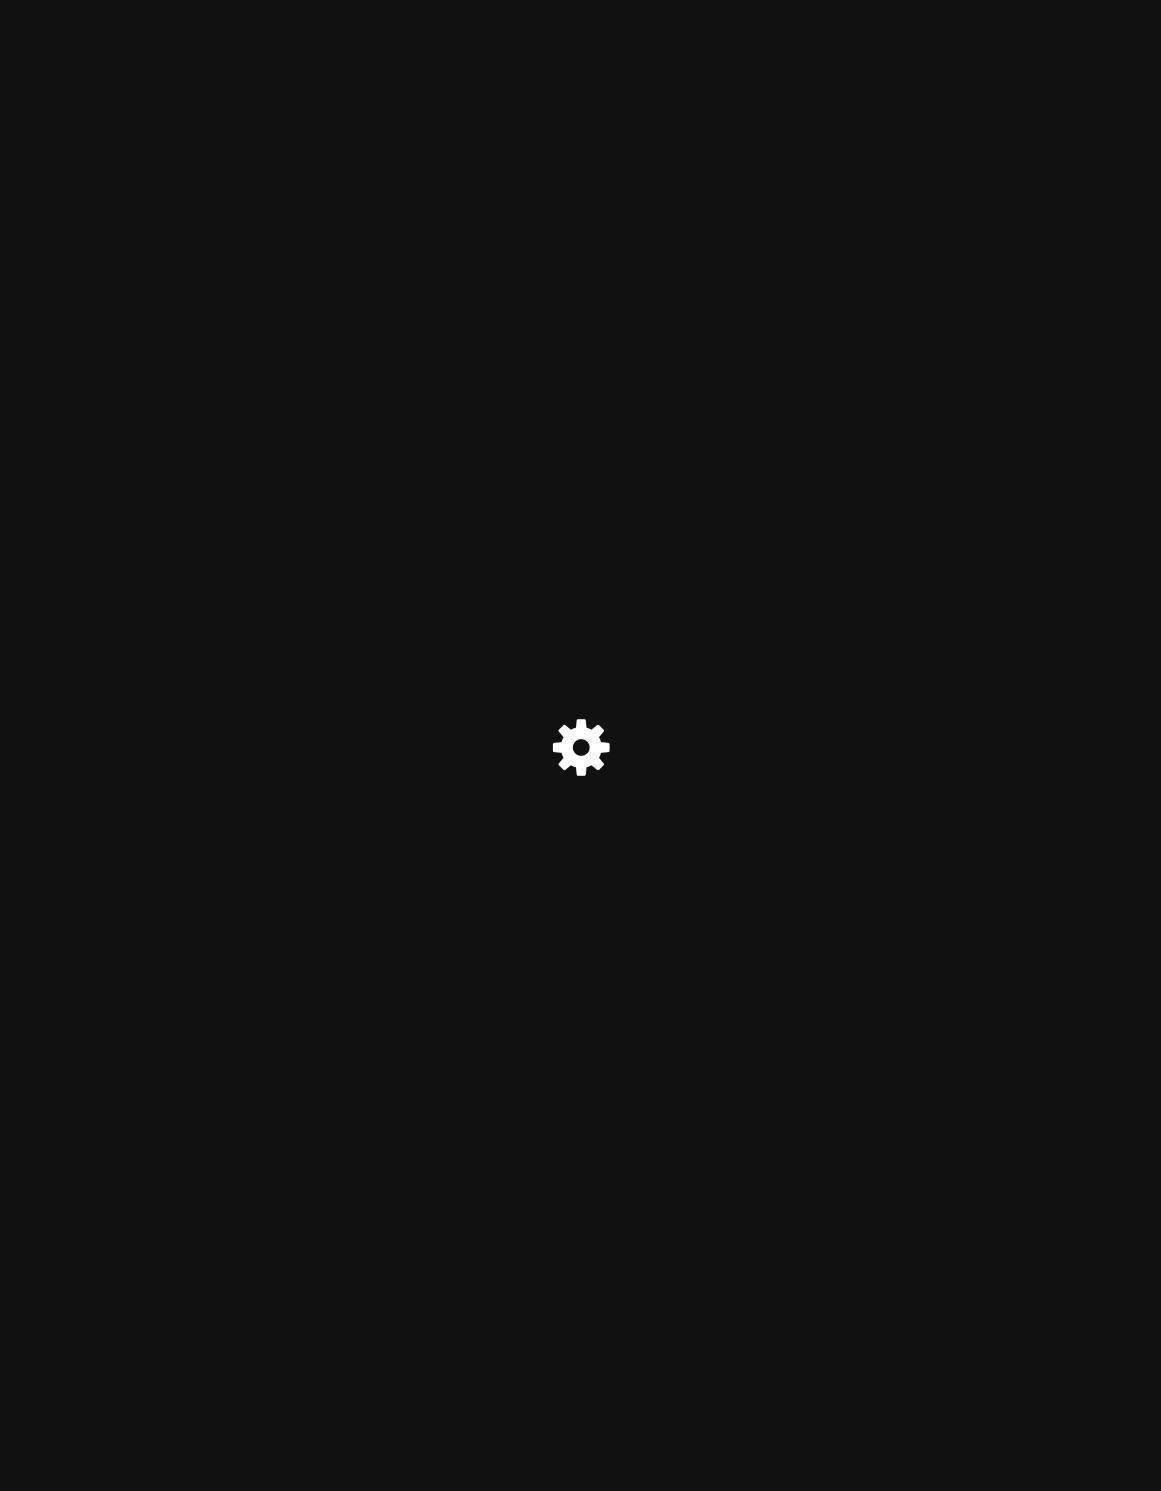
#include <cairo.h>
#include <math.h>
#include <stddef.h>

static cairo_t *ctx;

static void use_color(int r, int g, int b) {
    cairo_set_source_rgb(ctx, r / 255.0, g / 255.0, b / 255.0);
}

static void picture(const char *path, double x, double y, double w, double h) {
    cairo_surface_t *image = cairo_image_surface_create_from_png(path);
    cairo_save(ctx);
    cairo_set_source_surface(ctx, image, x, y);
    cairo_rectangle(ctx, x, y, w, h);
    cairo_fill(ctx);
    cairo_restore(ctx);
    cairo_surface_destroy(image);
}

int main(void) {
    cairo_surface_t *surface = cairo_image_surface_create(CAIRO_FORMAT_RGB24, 1161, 1491);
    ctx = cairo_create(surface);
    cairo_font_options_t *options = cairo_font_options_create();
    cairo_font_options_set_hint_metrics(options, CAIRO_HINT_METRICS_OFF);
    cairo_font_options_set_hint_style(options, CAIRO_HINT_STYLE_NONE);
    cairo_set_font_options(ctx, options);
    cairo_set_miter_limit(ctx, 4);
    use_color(17, 17, 17);
    cairo_paint(ctx);
    picture("img1.png", 0, 0, 1161, 1491);
    picture("img2.png", 452, 72, 259, 154);
    picture("img3.png", 552, 719, 58, 57);
    cairo_surface_write_to_png(surface, "result.png");
    cairo_font_options_destroy(options);
    cairo_destroy(ctx);
    cairo_surface_destroy(surface);
    return 0;
}
